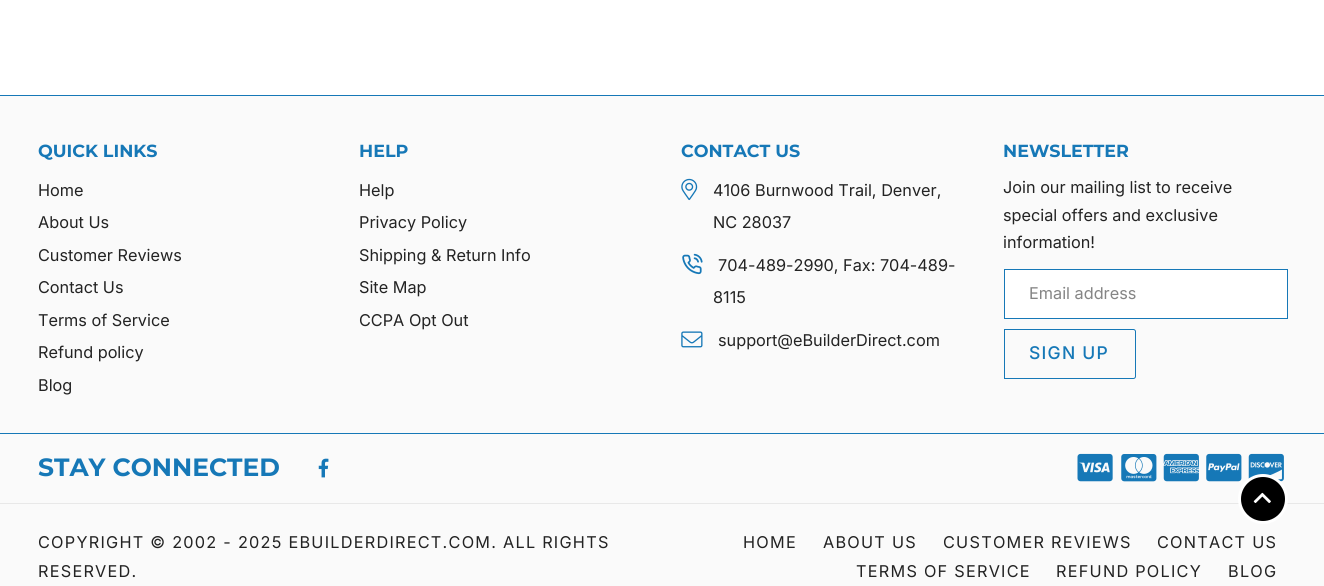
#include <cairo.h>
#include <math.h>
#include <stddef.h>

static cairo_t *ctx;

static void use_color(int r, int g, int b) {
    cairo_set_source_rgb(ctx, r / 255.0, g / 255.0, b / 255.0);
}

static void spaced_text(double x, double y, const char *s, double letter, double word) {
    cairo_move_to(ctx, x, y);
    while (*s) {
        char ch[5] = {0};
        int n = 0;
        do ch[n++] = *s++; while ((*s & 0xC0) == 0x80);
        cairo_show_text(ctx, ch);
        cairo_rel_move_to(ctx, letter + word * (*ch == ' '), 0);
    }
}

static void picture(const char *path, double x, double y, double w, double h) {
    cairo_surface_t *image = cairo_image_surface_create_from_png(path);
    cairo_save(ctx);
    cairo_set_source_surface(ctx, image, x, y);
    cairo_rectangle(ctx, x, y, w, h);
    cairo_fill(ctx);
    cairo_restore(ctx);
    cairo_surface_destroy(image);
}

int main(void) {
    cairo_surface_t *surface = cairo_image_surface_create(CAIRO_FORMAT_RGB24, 1324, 586);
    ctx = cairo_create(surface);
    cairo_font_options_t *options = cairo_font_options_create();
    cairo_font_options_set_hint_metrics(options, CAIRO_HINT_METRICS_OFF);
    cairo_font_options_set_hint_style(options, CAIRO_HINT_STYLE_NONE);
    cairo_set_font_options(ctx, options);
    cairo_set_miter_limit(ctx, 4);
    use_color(255, 255, 255);
    cairo_paint(ctx);
    use_color(250, 250, 250);
    cairo_rectangle(ctx, 0, 96, 1324, 490);
    cairo_fill(ctx);
    use_color(22, 120, 183);
    cairo_rectangle(ctx, 0, 95, 1324, 1);
    cairo_fill(ctx);
    cairo_select_font_face(ctx, "Montserrat", CAIRO_FONT_SLANT_NORMAL, CAIRO_FONT_WEIGHT_BOLD);
    cairo_set_font_size(ctx, 17.5);
    cairo_move_to(ctx, 38, 157);
    cairo_show_text(ctx, "QUICK LINKS");
    cairo_select_font_face(ctx, "Inter", CAIRO_FONT_SLANT_NORMAL, CAIRO_FONT_WEIGHT_NORMAL);
    cairo_set_font_size(ctx, 16.25);
    use_color(35, 35, 35);
    cairo_move_to(ctx, 38, 196);
    cairo_show_text(ctx, "Home");
    cairo_move_to(ctx, 38, 228);
    cairo_show_text(ctx, "About Us");
    cairo_move_to(ctx, 38, 261);
    cairo_show_text(ctx, "Customer Reviews");
    cairo_move_to(ctx, 38, 293);
    cairo_show_text(ctx, "Contact Us");
    cairo_move_to(ctx, 38, 326);
    cairo_show_text(ctx, "Terms of Service");
    cairo_move_to(ctx, 38, 358);
    cairo_show_text(ctx, "Refund policy");
    cairo_move_to(ctx, 38, 391);
    cairo_show_text(ctx, "Blog");
    cairo_select_font_face(ctx, "Montserrat", CAIRO_FONT_SLANT_NORMAL, CAIRO_FONT_WEIGHT_BOLD);
    cairo_set_font_size(ctx, 17.5);
    use_color(22, 120, 183);
    cairo_move_to(ctx, 359, 157);
    cairo_show_text(ctx, "HELP");
    cairo_select_font_face(ctx, "Inter", CAIRO_FONT_SLANT_NORMAL, CAIRO_FONT_WEIGHT_NORMAL);
    cairo_set_font_size(ctx, 16.25);
    use_color(35, 35, 35);
    cairo_move_to(ctx, 359, 196);
    cairo_show_text(ctx, "Help");
    cairo_move_to(ctx, 359, 228);
    cairo_show_text(ctx, "Privacy Policy");
    cairo_move_to(ctx, 359, 261);
    cairo_show_text(ctx, "Shipping & Return Info");
    cairo_move_to(ctx, 359, 293);
    cairo_show_text(ctx, "Site Map");
    cairo_move_to(ctx, 359, 326);
    cairo_show_text(ctx, "CCPA Opt Out");
    cairo_select_font_face(ctx, "Montserrat", CAIRO_FONT_SLANT_NORMAL, CAIRO_FONT_WEIGHT_BOLD);
    cairo_set_font_size(ctx, 17.5);
    use_color(22, 120, 183);
    cairo_move_to(ctx, 681, 157);
    cairo_show_text(ctx, "CONTACT US");
    picture("img1.png", 681, 178, 17, 23);
    cairo_select_font_face(ctx, "Inter", CAIRO_FONT_SLANT_NORMAL, CAIRO_FONT_WEIGHT_NORMAL);
    cairo_set_font_size(ctx, 16.25);
    use_color(35, 35, 35);
    cairo_move_to(ctx, 713, 196);
    cairo_show_text(ctx, "4106 Burnwood Trail, Denver,");
    cairo_move_to(ctx, 713, 228);
    cairo_show_text(ctx, "NC 28037");
    picture("img2.png", 682, 253, 21, 22);
    cairo_move_to(ctx, 718, 271);
    cairo_show_text(ctx, "704-489-2990, Fax: 704-489-");
    cairo_move_to(ctx, 713, 303);
    cairo_show_text(ctx, "8115");
    picture("img3.png", 681, 331, 22, 17);
    cairo_move_to(ctx, 718, 346);
    cairo_show_text(ctx, "support@eBuilderDirect.com");
    cairo_select_font_face(ctx, "Montserrat", CAIRO_FONT_SLANT_NORMAL, CAIRO_FONT_WEIGHT_BOLD);
    cairo_set_font_size(ctx, 17.5);
    use_color(22, 120, 183);
    cairo_move_to(ctx, 1003, 157);
    cairo_show_text(ctx, "NEWSLETTER");
    cairo_select_font_face(ctx, "Inter", CAIRO_FONT_SLANT_NORMAL, CAIRO_FONT_WEIGHT_NORMAL);
    cairo_set_font_size(ctx, 16.25);
    use_color(35, 35, 35);
    cairo_move_to(ctx, 1003, 193);
    cairo_show_text(ctx, "Join our mailing list to receive");
    cairo_move_to(ctx, 1003, 221);
    cairo_show_text(ctx, "special offers and exclusive");
    cairo_move_to(ctx, 1003, 248);
    cairo_show_text(ctx, "information!");
    use_color(255, 255, 255);
    cairo_rectangle(ctx, 1004.5, 269.5, 283, 49);
    cairo_fill_preserve(ctx);
    use_color(22, 120, 183);
    cairo_set_line_width(ctx, 1);
    cairo_stroke(ctx);
    use_color(133, 133, 133);
    cairo_move_to(ctx, 1029, 299);
    cairo_show_text(ctx, "Email address");
    cairo_new_path(ctx);
    cairo_move_to(ctx, 1004.5, 329.5);
    cairo_line_to(ctx, 1133.5, 329.5);
    cairo_curve_to(ctx, 1134.5, 329.5, 1135.5, 330.5, 1135.5, 331.5);
    cairo_line_to(ctx, 1135.5, 376.5);
    cairo_curve_to(ctx, 1135.5, 377.5, 1134.5, 378.5, 1133.5, 378.5);
    cairo_line_to(ctx, 1004.5, 378.5);
    cairo_close_path(ctx);
    use_color(22, 120, 183);
    cairo_stroke(ctx);
    cairo_select_font_face(ctx, "Inter Medium", CAIRO_FONT_SLANT_NORMAL, CAIRO_FONT_WEIGHT_NORMAL);
    cairo_set_font_size(ctx, 17.5);
    spaced_text(1029, 359, "SIGN UP", 1.25, 0);
    cairo_rectangle(ctx, 0, 433, 1324, 1);
    cairo_fill(ctx);
    cairo_select_font_face(ctx, "Montserrat", CAIRO_FONT_SLANT_NORMAL, CAIRO_FONT_WEIGHT_BOLD);
    cairo_set_font_size(ctx, 25);
    cairo_move_to(ctx, 38, 476);
    cairo_show_text(ctx, "STAY CONNECTED");
    picture("img4.png", 318, 458, 11, 20);
    picture("img5.png", 1077, 453, 36, 29);
    picture("img6.png", 1121, 454, 36, 28);
    picture("img7.png", 1163, 453, 36, 29);
    picture("img8.png", 1206, 453, 36, 29);
    picture("img9.png", 1248, 453, 36, 29);
    use_color(232, 232, 232);
    cairo_rectangle(ctx, 0, 503, 1324, 1);
    cairo_fill(ctx);
    cairo_select_font_face(ctx, "Inter", CAIRO_FONT_SLANT_NORMAL, CAIRO_FONT_WEIGHT_NORMAL);
    cairo_set_font_size(ctx, 16.25);
    use_color(35, 35, 35);
    spaced_text(38, 548, "COPYRIGHT © 2002 - 2025 EBUILDERDIRECT.COM. ALL RIGHTS", 1.25, 0);
    spaced_text(38, 577, "RESERVED.", 1.25, 0);
    spaced_text(743, 548, "HOME", 1.25, 0);
    spaced_text(823, 548, "ABOUT US", 1.25, 0);
    spaced_text(943, 548, "CUSTOMER REVIEWS", 1.25, 0);
    spaced_text(1157, 548, "CONTACT US", 1.25, 0);
    spaced_text(856, 577, "TERMS OF SERVICE", 1.25, 0);
    spaced_text(1056, 577, "REFUND POLICY", 1.25, 0);
    spaced_text(1228, 577, "BLOG", 1.25, 0);
    use_color(0, 0, 0);
    cairo_new_path(ctx);
    cairo_arc(ctx, 1263, 499, 23.5, 0, 2 * M_PI);
    cairo_fill_preserve(ctx);
    use_color(255, 255, 255);
    cairo_set_line_width(ctx, 3);
    cairo_stroke(ctx);
    picture("img10.png", 1253, 492, 18, 11);
    cairo_surface_write_to_png(surface, "result.png");
    cairo_font_options_destroy(options);
    cairo_destroy(ctx);
    cairo_surface_destroy(surface);
    return 0;
}
